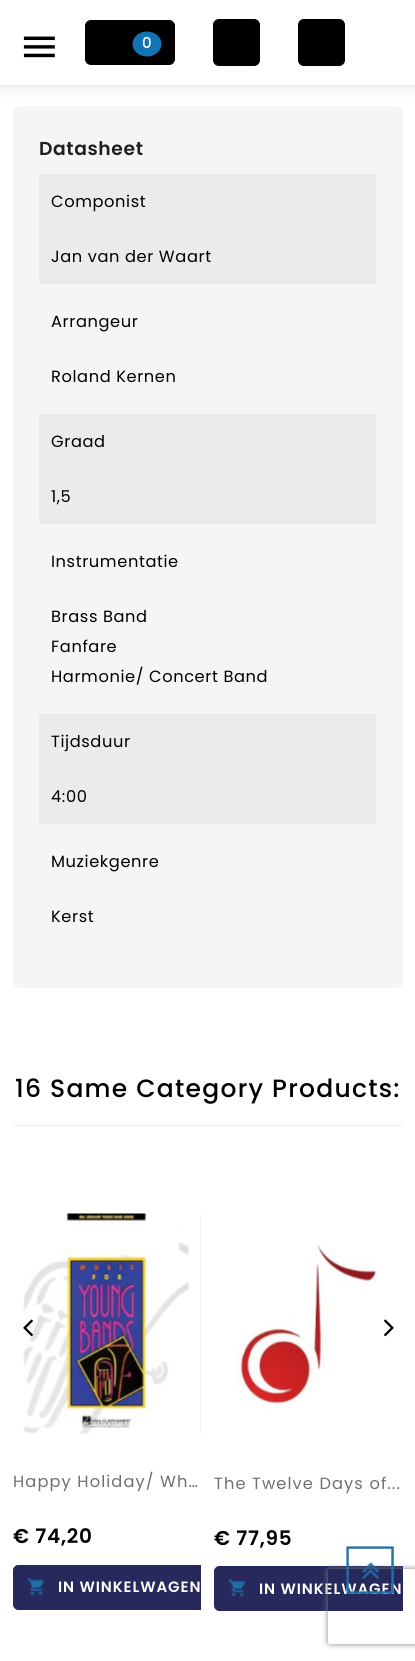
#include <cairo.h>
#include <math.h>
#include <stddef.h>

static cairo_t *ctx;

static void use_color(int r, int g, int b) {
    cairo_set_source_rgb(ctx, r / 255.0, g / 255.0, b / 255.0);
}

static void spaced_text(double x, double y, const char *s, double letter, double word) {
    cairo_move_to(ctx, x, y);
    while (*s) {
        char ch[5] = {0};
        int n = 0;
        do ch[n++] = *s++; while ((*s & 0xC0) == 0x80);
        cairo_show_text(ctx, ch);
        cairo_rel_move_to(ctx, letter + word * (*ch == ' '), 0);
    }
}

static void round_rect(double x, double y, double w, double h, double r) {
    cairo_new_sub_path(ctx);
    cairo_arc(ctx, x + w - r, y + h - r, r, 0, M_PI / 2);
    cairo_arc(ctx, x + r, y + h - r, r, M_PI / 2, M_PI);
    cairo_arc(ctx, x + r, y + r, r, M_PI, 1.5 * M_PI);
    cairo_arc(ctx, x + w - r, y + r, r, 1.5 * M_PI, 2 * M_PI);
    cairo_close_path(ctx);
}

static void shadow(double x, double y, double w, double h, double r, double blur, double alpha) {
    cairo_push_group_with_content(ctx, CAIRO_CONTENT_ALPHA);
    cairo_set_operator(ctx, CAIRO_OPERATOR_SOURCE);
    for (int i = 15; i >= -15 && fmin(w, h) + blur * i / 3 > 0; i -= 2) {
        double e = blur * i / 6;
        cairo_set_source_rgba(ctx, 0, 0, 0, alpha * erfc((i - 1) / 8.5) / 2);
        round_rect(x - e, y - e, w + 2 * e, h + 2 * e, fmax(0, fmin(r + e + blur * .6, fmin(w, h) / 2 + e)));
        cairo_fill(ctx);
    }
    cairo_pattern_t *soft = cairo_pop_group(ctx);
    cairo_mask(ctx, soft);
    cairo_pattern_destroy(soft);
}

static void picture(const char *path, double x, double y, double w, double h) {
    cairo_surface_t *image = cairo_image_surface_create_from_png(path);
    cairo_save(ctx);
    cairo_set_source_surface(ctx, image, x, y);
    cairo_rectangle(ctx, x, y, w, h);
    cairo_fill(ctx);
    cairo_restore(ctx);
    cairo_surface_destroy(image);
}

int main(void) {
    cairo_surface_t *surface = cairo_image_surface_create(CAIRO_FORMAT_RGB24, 415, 1661);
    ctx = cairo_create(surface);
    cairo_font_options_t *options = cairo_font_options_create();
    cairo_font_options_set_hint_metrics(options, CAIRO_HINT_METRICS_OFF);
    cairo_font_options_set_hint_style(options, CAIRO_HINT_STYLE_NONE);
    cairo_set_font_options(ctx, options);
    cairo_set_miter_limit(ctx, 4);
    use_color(255, 255, 255);
    cairo_paint(ctx);
    use_color(245, 245, 245);
    round_rect(13, 106, 390, 882, 6);
    cairo_fill(ctx);
    use_color(0, 0, 0);
    shadow(0, 3, 415, 85, 0, 7, 0.1);
    use_color(255, 255, 255);
    cairo_rectangle(ctx, 0, 0, 415, 85);
    cairo_fill(ctx);
    picture("img1.png", 23, 36, 32, 22);
    use_color(0, 0, 0);
    round_rect(85.5, 20.5, 89, 44, 5.5);
    cairo_fill_preserve(ctx);
    cairo_set_line_width(ctx, 1);
    cairo_stroke(ctx);
    use_color(19, 115, 181);
    cairo_new_path(ctx);
    cairo_move_to(ctx, 147, 31.5);
    cairo_curve_to(ctx, 155, 31.5, 161.5, 37, 161.5, 44);
    cairo_curve_to(ctx, 161.5, 51, 155, 56.5, 147, 56.5);
    cairo_curve_to(ctx, 139, 56.5, 132.5, 51, 132.5, 44);
    cairo_curve_to(ctx, 132.5, 37, 139, 31.5, 147, 31.5);
    cairo_close_path(ctx);
    cairo_fill(ctx);
    cairo_select_font_face(ctx, "Poppins Medium", CAIRO_FONT_SLANT_NORMAL, CAIRO_FONT_WEIGHT_NORMAL);
    cairo_set_font_size(ctx, 15);
    use_color(255, 255, 255);
    spaced_text(142, 48, "0", 0.6, 0);
    use_color(0, 0, 0);
    round_rect(213.5, 19.5, 46, 46, 5.5);
    cairo_fill_preserve(ctx);
    cairo_stroke(ctx);
    round_rect(298.5, 19.5, 46, 46, 5.5);
    cairo_fill_preserve(ctx);
    cairo_stroke(ctx);
    cairo_select_font_face(ctx, "Poppins SemiBold", CAIRO_FONT_SLANT_NORMAL, CAIRO_FONT_WEIGHT_NORMAL);
    cairo_set_font_size(ctx, 18.75);
    use_color(31, 31, 31);
    spaced_text(39, 155, "Datasheet", 0.6, 0);
    use_color(235, 235, 235);
    cairo_rectangle(ctx, 39, 174, 337, 110);
    cairo_fill(ctx);
    cairo_select_font_face(ctx, "Poppins", CAIRO_FONT_SLANT_NORMAL, CAIRO_FONT_WEIGHT_NORMAL);
    cairo_set_font_size(ctx, 16.25);
    use_color(0, 0, 0);
    spaced_text(51, 207, "Componist", 0.6, 0);
    spaced_text(51, 262, "Jan van der Waart", 0.6, 0);
    spaced_text(51, 327, "Arrangeur", 0.6, 0);
    spaced_text(51, 382, "Roland Kernen", 0.6, 0);
    use_color(235, 235, 235);
    cairo_rectangle(ctx, 39, 414, 337, 110);
    cairo_fill(ctx);
    use_color(0, 0, 0);
    spaced_text(51, 447, "Graad", 0.6, 0);
    spaced_text(51, 502, "1,5", 0.6, 0);
    spaced_text(51, 567, "Instrumentatie", 0.6, 0);
    spaced_text(51, 622, "Brass Band", 0.6, 0);
    spaced_text(51, 652, "Fanfare", 0.6, 0);
    spaced_text(51, 682, "Harmonie/ Concert Band", 0.6, 0);
    use_color(235, 235, 235);
    cairo_rectangle(ctx, 39, 714, 337, 110);
    cairo_fill(ctx);
    use_color(0, 0, 0);
    spaced_text(51, 747, "Tijdsduur", 0.6, 0);
    spaced_text(51, 802, "4:00", 0.6, 0);
    spaced_text(51, 867, "Muziekgenre", 0.6, 0);
    spaced_text(51, 922, "Kerst", 0.6, 0);
    use_color(240, 240, 240);
    cairo_rectangle(ctx, 13, 1125, 390, 1);
    cairo_fill(ctx);
    cairo_select_font_face(ctx, "Poppins Medium", CAIRO_FONT_SLANT_NORMAL, CAIRO_FONT_WEIGHT_NORMAL);
    cairo_set_font_size(ctx, 25);
    use_color(0, 0, 0);
    spaced_text(15, 1097, "16 Same Category Products:", 1.25, 0);
    picture("img4.png", 23, 1213, 166, 221);
    picture("img2.png", 23, 1319, 10, 18);
    picture("img3.png", 384, 1319, 10, 18);
    use_color(240, 240, 240);
    cairo_rectangle(ctx, 200, 1214, 1, 220);
    cairo_fill(ctx);
    cairo_select_font_face(ctx, "Poppins", CAIRO_FONT_SLANT_NORMAL, CAIRO_FONT_WEIGHT_NORMAL);
    cairo_set_font_size(ctx, 16.25);
    use_color(112, 112, 112);
    spaced_text(13, 1487, "Happy Holiday/ Wh…", 1.1, 0);
    cairo_select_font_face(ctx, "Poppins SemiBold", CAIRO_FONT_SLANT_NORMAL, CAIRO_FONT_WEIGHT_NORMAL);
    cairo_set_font_size(ctx, 20);
    use_color(0, 0, 0);
    spaced_text(13, 1543, "€ 74,20", 0.75, 0);
    use_color(39, 41, 92);
    cairo_new_path(ctx);
    cairo_move_to(ctx, 19, 1565);
    cairo_line_to(ctx, 201, 1565);
    cairo_line_to(ctx, 201, 1610);
    cairo_line_to(ctx, 19, 1610);
    cairo_curve_to(ctx, 15.5, 1610, 13, 1607.5, 13, 1604);
    cairo_line_to(ctx, 13, 1571);
    cairo_curve_to(ctx, 13, 1567.5, 15.5, 1565, 19, 1565);
    cairo_close_path(ctx);
    cairo_fill(ctx);
    picture("img5.png", 27, 1578, 17, 17);
    cairo_save(ctx);
    cairo_rectangle(ctx, 13, 1453, 188, 157);
    cairo_clip(ctx);
    round_rect(13.5, 1565.5, 206, 44, 5.5);
    cairo_stroke(ctx);
    cairo_restore(ctx);
    cairo_set_font_size(ctx, 15);
    use_color(255, 255, 255);
    spaced_text(58, 1592, "IN WINKELWAGEN", 0.9, 0);
    picture("img6.png", 237, 1245, 140, 164);
    cairo_select_font_face(ctx, "Poppins", CAIRO_FONT_SLANT_NORMAL, CAIRO_FONT_WEIGHT_NORMAL);
    cairo_set_font_size(ctx, 16.25);
    use_color(112, 112, 112);
    spaced_text(214, 1489, "The Twelve Days of...", 1.1, 0);
    cairo_select_font_face(ctx, "Poppins SemiBold", CAIRO_FONT_SLANT_NORMAL, CAIRO_FONT_WEIGHT_NORMAL);
    cairo_set_font_size(ctx, 20);
    use_color(0, 0, 0);
    spaced_text(214, 1545, "€ 77,95", 0.75, 0);
    use_color(39, 41, 92);
    cairo_new_path(ctx);
    cairo_move_to(ctx, 220, 1566);
    cairo_line_to(ctx, 403, 1566);
    cairo_line_to(ctx, 403, 1611);
    cairo_line_to(ctx, 220, 1611);
    cairo_curve_to(ctx, 216.5, 1611, 214, 1608.5, 214, 1605);
    cairo_line_to(ctx, 214, 1572);
    cairo_curve_to(ctx, 214, 1568.5, 216.5, 1566, 220, 1566);
    cairo_close_path(ctx);
    cairo_fill(ctx);
    picture("img7.png", 228, 1579, 18, 17);
    cairo_save(ctx);
    cairo_rectangle(ctx, 214, 1454, 189, 157);
    cairo_clip(ctx);
    round_rect(214.5, 1566.5, 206, 44, 5.5);
    cairo_stroke(ctx);
    cairo_restore(ctx);
    cairo_set_font_size(ctx, 15);
    use_color(255, 255, 255);
    spaced_text(259, 1594, "IN WINKELWAGEN", 0.9, 0);
    cairo_save(ctx);
    cairo_set_fill_rule(ctx, CAIRO_FILL_RULE_EVEN_ODD);
    cairo_new_path(ctx);
    cairo_move_to(ctx, 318, 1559);
    cairo_line_to(ctx, 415, 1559);
    cairo_line_to(ctx, 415, 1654);
    cairo_line_to(ctx, 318, 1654);
    cairo_close_path(ctx);
    cairo_move_to(ctx, 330.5, 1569);
    cairo_line_to(ctx, 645.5, 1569);
    cairo_curve_to(ctx, 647, 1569, 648, 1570, 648, 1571.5);
    cairo_line_to(ctx, 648, 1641.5);
    cairo_curve_to(ctx, 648, 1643, 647, 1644, 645.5, 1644);
    cairo_line_to(ctx, 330.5, 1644);
    cairo_curve_to(ctx, 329, 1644, 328, 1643, 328, 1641.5);
    cairo_line_to(ctx, 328, 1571.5);
    cairo_curve_to(ctx, 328, 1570, 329, 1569, 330.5, 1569);
    cairo_close_path(ctx);
    cairo_clip(ctx);
    use_color(128, 128, 128);
    shadow(328, 1569, 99, 75, 2.5, 3, 1);
    cairo_restore(ctx);
    picture("img8.png", 346, 1546, 48, 48);
    cairo_surface_write_to_png(surface, "result.png");
    cairo_font_options_destroy(options);
    cairo_destroy(ctx);
    cairo_surface_destroy(surface);
    return 0;
}
